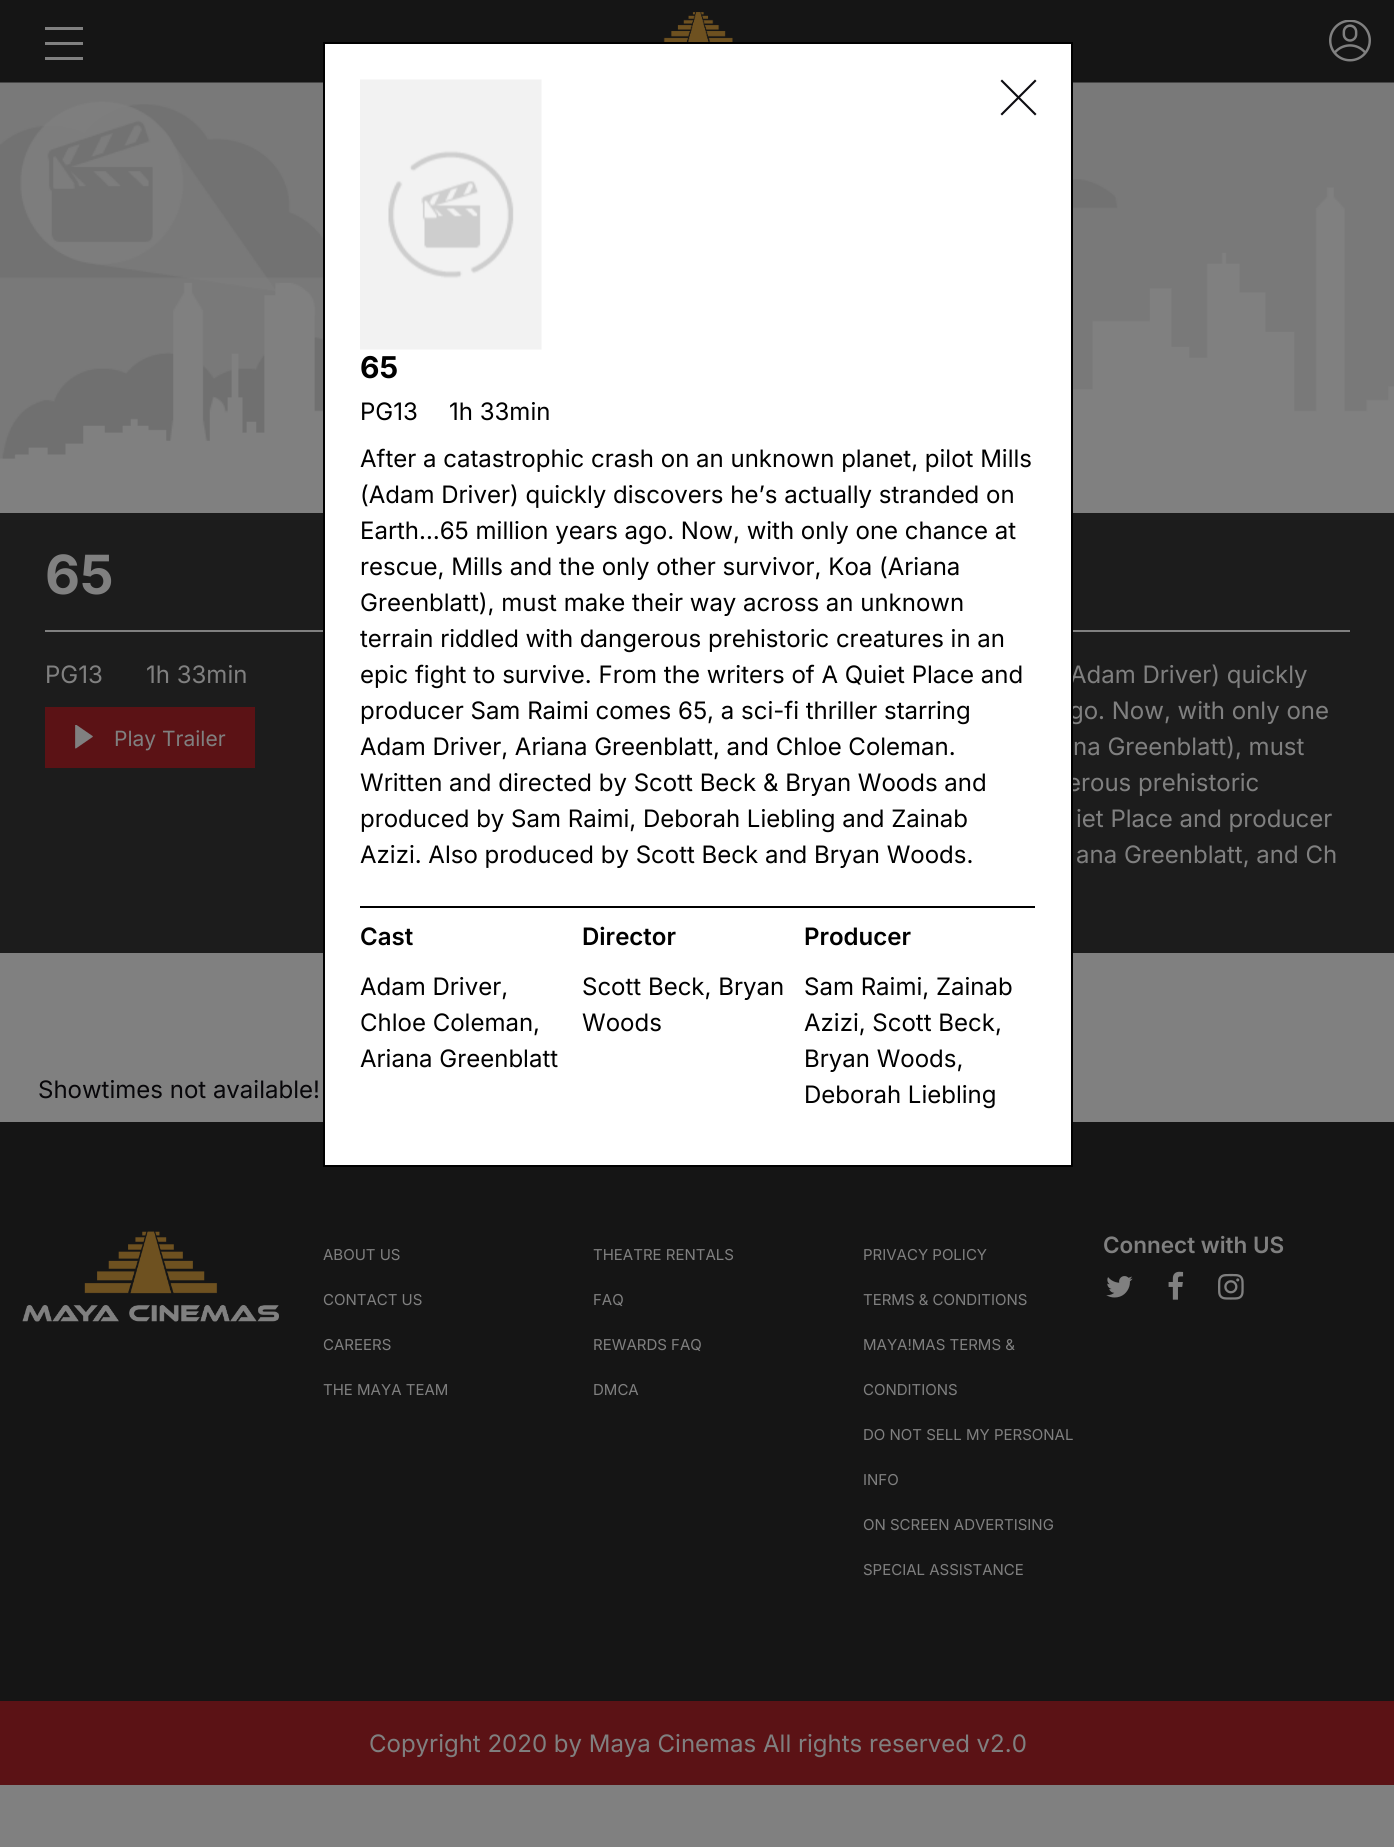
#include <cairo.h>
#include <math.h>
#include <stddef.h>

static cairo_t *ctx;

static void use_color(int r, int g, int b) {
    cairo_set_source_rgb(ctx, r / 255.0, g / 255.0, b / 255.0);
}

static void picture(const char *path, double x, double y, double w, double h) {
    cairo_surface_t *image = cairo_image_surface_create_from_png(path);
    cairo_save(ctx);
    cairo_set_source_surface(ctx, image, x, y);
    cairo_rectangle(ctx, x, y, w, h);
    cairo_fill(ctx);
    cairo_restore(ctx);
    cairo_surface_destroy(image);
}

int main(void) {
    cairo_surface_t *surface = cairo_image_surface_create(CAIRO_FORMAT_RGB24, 1394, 1847);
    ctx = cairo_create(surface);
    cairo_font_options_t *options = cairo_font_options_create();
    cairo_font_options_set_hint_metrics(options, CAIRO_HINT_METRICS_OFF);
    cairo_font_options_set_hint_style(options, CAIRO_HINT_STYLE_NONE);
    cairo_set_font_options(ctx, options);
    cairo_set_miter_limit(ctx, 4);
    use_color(128, 128, 128);
    cairo_paint(ctx);
    use_color(21, 21, 21);
    cairo_rectangle(ctx, 0, 0, 1394, 83);
    cairo_fill(ctx);
    use_color(128, 128, 128);
    cairo_rectangle(ctx, 45, 42, 38, 3);
    cairo_fill(ctx);
    cairo_rectangle(ctx, 45, 27, 38, 3);
    cairo_fill(ctx);
    cairo_rectangle(ctx, 45, 57, 38, 3);
    cairo_fill(ctx);
    picture("img1.png", 663, 12, 70, 30);
    picture("img2.png", 1329, 20, 42, 42);
    picture("img4.png", 0, 82, 1394, 377);
    use_color(28, 28, 28);
    cairo_rectangle(ctx, 0, 513, 1394, 440);
    cairo_fill(ctx);
    use_color(128, 128, 128);
    cairo_rectangle(ctx, 45, 630, 1305, 2);
    cairo_fill(ctx);
    cairo_select_font_face(ctx, "Inter", CAIRO_FONT_SLANT_NORMAL, CAIRO_FONT_WEIGHT_NORMAL);
    cairo_set_font_size(ctx, 24);
    cairo_move_to(ctx, 1070, 683);
    cairo_show_text(ctx, "Adam Driver) quickly");
    cairo_move_to(ctx, 1069, 719);
    cairo_show_text(ctx, "go. Now, with only one");
    cairo_move_to(ctx, 1067, 791);
    cairo_show_text(ctx, "erous prehistoric");
    use_color(21, 21, 21);
    cairo_rectangle(ctx, 0, 1122, 1394, 579);
    cairo_fill(ctx);
    use_color(255, 255, 255);
    cairo_rectangle(ctx, 324, 43, 748, 1123);
    cairo_fill_preserve(ctx);
    use_color(0, 0, 0);
    cairo_stroke(ctx);
    use_color(13, 12, 17);
    cairo_new_path(ctx);
    cairo_move_to(ctx, 1036.5, 81);
    cairo_line_to(ctx, 1035, 79.5);
    cairo_line_to(ctx, 1018.5, 96);
    cairo_line_to(ctx, 1002, 79.5);
    cairo_line_to(ctx, 1000.5, 81);
    cairo_line_to(ctx, 1017, 97.5);
    cairo_line_to(ctx, 1000.5, 114);
    cairo_line_to(ctx, 1002, 115.5);
    cairo_line_to(ctx, 1018.5, 99);
    cairo_line_to(ctx, 1035, 115.5);
    cairo_line_to(ctx, 1036.5, 114);
    cairo_line_to(ctx, 1020, 97.5);
    cairo_close_path(ctx);
    cairo_fill(ctx);
    picture("img3.png", 360, 79, 182, 271);
    cairo_select_font_face(ctx, "Inter", CAIRO_FONT_SLANT_NORMAL, CAIRO_FONT_WEIGHT_BOLD);
    cairo_set_font_size(ctx, 30);
    use_color(0, 0, 0);
    cairo_move_to(ctx, 360, 378);
    cairo_show_text(ctx, "65");
    cairo_select_font_face(ctx, "Inter", CAIRO_FONT_SLANT_NORMAL, CAIRO_FONT_WEIGHT_NORMAL);
    cairo_set_font_size(ctx, 24);
    cairo_move_to(ctx, 360, 420);
    cairo_show_text(ctx, "PG13");
    cairo_move_to(ctx, 449, 420);
    cairo_show_text(ctx, "1h 33min");
    cairo_move_to(ctx, 360, 467);
    cairo_show_text(ctx, "After a catastrophic crash on an unknown planet, pilot Mills");
    cairo_move_to(ctx, 360, 503);
    cairo_show_text(ctx, "(Adam Driver) quickly discovers he’s actually stranded on");
    cairo_move_to(ctx, 360, 539);
    cairo_show_text(ctx, "Earth…65 million years ago. Now, with only one chance at");
    cairo_move_to(ctx, 360, 575);
    cairo_show_text(ctx, "rescue, Mills and the only other survivor, Koa (Ariana");
    cairo_move_to(ctx, 360, 611);
    cairo_show_text(ctx, "Greenblatt), must make their way across an unknown");
    cairo_move_to(ctx, 360, 647);
    cairo_show_text(ctx, "terrain riddled with dangerous prehistoric creatures in an");
    cairo_move_to(ctx, 360, 683);
    cairo_show_text(ctx, "epic fight to survive. From the writers of A Quiet Place and");
    cairo_move_to(ctx, 360, 719);
    cairo_show_text(ctx, "producer Sam Raimi comes 65, a sci-fi thriller starring");
    cairo_move_to(ctx, 360, 755);
    cairo_show_text(ctx, "Adam Driver, Ariana Greenblatt, and Chloe Coleman.");
    cairo_move_to(ctx, 360, 791);
    cairo_show_text(ctx, "Written and directed by Scott Beck & Bryan Woods and");
    cairo_move_to(ctx, 360, 827);
    cairo_show_text(ctx, "produced by Sam Raimi, Deborah Liebling and Zainab");
    cairo_move_to(ctx, 360, 863);
    cairo_show_text(ctx, "Azizi. Also produced by Scott Beck and Bryan Woods.");
    cairo_rectangle(ctx, 360, 906, 675, 2);
    cairo_fill(ctx);
    cairo_select_font_face(ctx, "Inter SemiBold", CAIRO_FONT_SLANT_NORMAL, CAIRO_FONT_WEIGHT_NORMAL);
    cairo_move_to(ctx, 360, 945);
    cairo_show_text(ctx, "Cast");
    cairo_select_font_face(ctx, "Inter", CAIRO_FONT_SLANT_NORMAL, CAIRO_FONT_WEIGHT_NORMAL);
    cairo_move_to(ctx, 360, 995);
    cairo_show_text(ctx, "Adam Driver,");
    cairo_move_to(ctx, 360, 1031);
    cairo_show_text(ctx, "Chloe Coleman,");
    cairo_move_to(ctx, 360, 1067);
    cairo_show_text(ctx, "Ariana Greenblatt");
    cairo_select_font_face(ctx, "Inter SemiBold", CAIRO_FONT_SLANT_NORMAL, CAIRO_FONT_WEIGHT_NORMAL);
    cairo_move_to(ctx, 582, 945);
    cairo_show_text(ctx, "Director");
    cairo_select_font_face(ctx, "Inter", CAIRO_FONT_SLANT_NORMAL, CAIRO_FONT_WEIGHT_NORMAL);
    cairo_move_to(ctx, 582, 995);
    cairo_show_text(ctx, "Scott Beck, Bryan");
    cairo_move_to(ctx, 582, 1031);
    cairo_show_text(ctx, "Woods");
    cairo_select_font_face(ctx, "Inter SemiBold", CAIRO_FONT_SLANT_NORMAL, CAIRO_FONT_WEIGHT_NORMAL);
    cairo_move_to(ctx, 804, 945);
    cairo_show_text(ctx, "Producer");
    cairo_select_font_face(ctx, "Inter", CAIRO_FONT_SLANT_NORMAL, CAIRO_FONT_WEIGHT_NORMAL);
    cairo_move_to(ctx, 804, 995);
    cairo_show_text(ctx, "Sam Raimi, Zainab");
    cairo_move_to(ctx, 804, 1031);
    cairo_show_text(ctx, "Azizi, Scott Beck,");
    cairo_move_to(ctx, 804, 1067);
    cairo_show_text(ctx, "Bryan Woods,");
    cairo_move_to(ctx, 804, 1103);
    cairo_show_text(ctx, "Deborah Liebling");
    cairo_select_font_face(ctx, "Inter", CAIRO_FONT_SLANT_NORMAL, CAIRO_FONT_WEIGHT_BOLD);
    cairo_set_font_size(ctx, 54);
    use_color(128, 128, 128);
    cairo_move_to(ctx, 45, 594);
    cairo_show_text(ctx, "65");
    cairo_select_font_face(ctx, "Inter", CAIRO_FONT_SLANT_NORMAL, CAIRO_FONT_WEIGHT_NORMAL);
    cairo_set_font_size(ctx, 24);
    cairo_move_to(ctx, 45, 683);
    cairo_show_text(ctx, "PG13");
    cairo_move_to(ctx, 146, 683);
    cairo_show_text(ctx, "1h 33min");
    use_color(91, 18, 21);
    cairo_rectangle(ctx, 45, 707, 210, 61);
    cairo_fill(ctx);
    picture("img5.png", 75, 725, 18, 24);
    cairo_set_font_size(ctx, 21);
    use_color(128, 128, 128);
    cairo_move_to(ctx, 114, 746);
    cairo_show_text(ctx, "Play Trailer");
    cairo_set_font_size(ctx, 24);
    cairo_move_to(ctx, 1073, 755);
    cairo_show_text(ctx, "na Greenblatt), must");
    cairo_move_to(ctx, 1076, 827);
    cairo_show_text(ctx, "iet Place and producer");
    cairo_move_to(ctx, 1076, 863);
    cairo_show_text(ctx, "ana Greenblatt, and Ch");
    use_color(7, 6, 9);
    cairo_move_to(ctx, 38, 1098);
    cairo_show_text(ctx, "Showtimes not available!");
    picture("img6.png", 22, 1231, 257, 91);
    cairo_select_font_face(ctx, "Inter SemiBold", CAIRO_FONT_SLANT_NORMAL, CAIRO_FONT_WEIGHT_NORMAL);
    cairo_set_font_size(ctx, 22.5);
    use_color(128, 128, 128);
    cairo_move_to(ctx, 1103, 1253);
    cairo_show_text(ctx, "Connect with US");
    picture("img7.png", 1106, 1276, 27, 22);
    picture("img8.png", 1168, 1271, 16, 29);
    picture("img9.png", 1218, 1273, 26, 27);
    cairo_select_font_face(ctx, "Inter", CAIRO_FONT_SLANT_NORMAL, CAIRO_FONT_WEIGHT_NORMAL);
    cairo_set_font_size(ctx, 15);
    cairo_move_to(ctx, 323, 1260);
    cairo_show_text(ctx, "ABOUT US");
    cairo_move_to(ctx, 323, 1305);
    cairo_show_text(ctx, "CONTACT US");
    cairo_move_to(ctx, 323, 1350);
    cairo_show_text(ctx, "CAREERS");
    cairo_move_to(ctx, 323, 1395);
    cairo_show_text(ctx, "THE MAYA TEAM");
    cairo_move_to(ctx, 593, 1260);
    cairo_show_text(ctx, "THEATRE RENTALS");
    cairo_move_to(ctx, 593, 1305);
    cairo_show_text(ctx, "FAQ");
    cairo_move_to(ctx, 593, 1350);
    cairo_show_text(ctx, "REWARDS FAQ");
    cairo_move_to(ctx, 593, 1395);
    cairo_show_text(ctx, "DMCA");
    cairo_move_to(ctx, 863, 1260);
    cairo_show_text(ctx, "PRIVACY POLICY");
    cairo_move_to(ctx, 863, 1305);
    cairo_show_text(ctx, "TERMS & CONDITIONS");
    cairo_move_to(ctx, 863, 1350);
    cairo_show_text(ctx, "MAYA!MAS TERMS &");
    cairo_move_to(ctx, 863, 1395);
    cairo_show_text(ctx, "CONDITIONS");
    cairo_move_to(ctx, 863, 1440);
    cairo_show_text(ctx, "DO NOT SELL MY PERSONAL");
    cairo_move_to(ctx, 863, 1485);
    cairo_show_text(ctx, "INFO");
    cairo_move_to(ctx, 863, 1530);
    cairo_show_text(ctx, "ON SCREEN ADVERTISING");
    cairo_move_to(ctx, 863, 1575);
    cairo_show_text(ctx, "SPECIAL ASSISTANCE");
    use_color(91, 18, 21);
    cairo_rectangle(ctx, 0, 1701, 1394, 84);
    cairo_fill(ctx);
    cairo_set_font_size(ctx, 24);
    use_color(128, 128, 128);
    cairo_move_to(ctx, 369, 1752);
    cairo_show_text(ctx, "Copyright 2020 by Maya Cinemas All rights reserved v2.0");
    cairo_surface_write_to_png(surface, "result.png");
    cairo_font_options_destroy(options);
    cairo_destroy(ctx);
    cairo_surface_destroy(surface);
    return 0;
}
